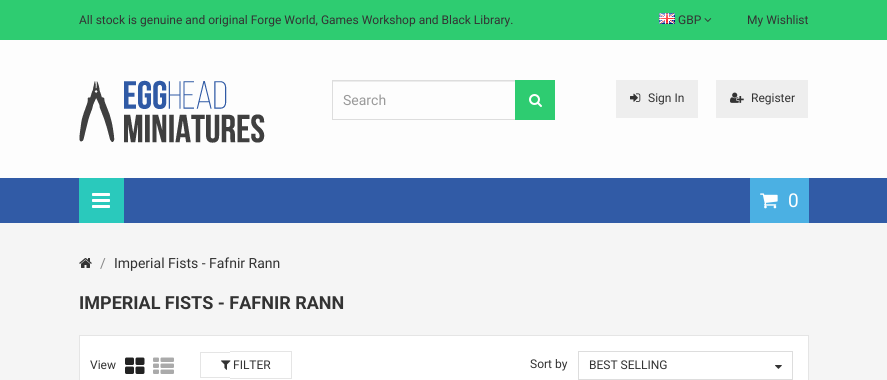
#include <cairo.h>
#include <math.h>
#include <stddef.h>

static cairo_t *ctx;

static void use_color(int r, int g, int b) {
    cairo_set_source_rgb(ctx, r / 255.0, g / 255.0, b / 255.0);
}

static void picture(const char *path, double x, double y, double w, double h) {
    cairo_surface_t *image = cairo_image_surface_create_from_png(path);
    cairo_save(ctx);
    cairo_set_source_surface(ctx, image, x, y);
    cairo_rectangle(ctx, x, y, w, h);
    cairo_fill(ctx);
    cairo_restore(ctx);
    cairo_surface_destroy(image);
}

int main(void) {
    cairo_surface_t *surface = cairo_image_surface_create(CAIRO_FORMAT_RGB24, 887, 380);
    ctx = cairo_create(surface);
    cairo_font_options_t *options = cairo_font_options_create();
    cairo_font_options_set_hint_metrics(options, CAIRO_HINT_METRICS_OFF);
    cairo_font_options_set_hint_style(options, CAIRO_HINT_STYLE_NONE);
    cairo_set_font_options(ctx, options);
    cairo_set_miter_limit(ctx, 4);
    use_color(245, 245, 245);
    cairo_paint(ctx);
    use_color(253, 253, 253);
    cairo_rectangle(ctx, 0, 40, 887, 138);
    cairo_fill(ctx);
    use_color(46, 204, 113);
    cairo_rectangle(ctx, 0, 0, 887, 40);
    cairo_fill(ctx);
    cairo_select_font_face(ctx, "Roboto", CAIRO_FONT_SLANT_NORMAL, CAIRO_FONT_WEIGHT_NORMAL);
    cairo_set_font_size(ctx, 12);
    use_color(51, 51, 51);
    cairo_move_to(ctx, 79, 24);
    cairo_show_text(ctx, "All stock is genuine and original Forge World, Games Workshop and Black Library.");
    picture("img1.png", 659, 13, 16, 11);
    cairo_move_to(ctx, 678, 24);
    cairo_show_text(ctx, "GBP");
    picture("img2.png", 704, 18, 8, 4);
    cairo_move_to(ctx, 747, 24);
    cairo_show_text(ctx, "My Wishlist");
    picture("img3.png", 79, 80, 186, 63);
    use_color(236, 236, 236);
    cairo_rectangle(ctx, 333, 81, 182, 1);
    cairo_fill(ctx);
    cairo_rectangle(ctx, 332.5, 80.5, 222, 39);
    use_color(221, 221, 221);
    cairo_set_line_width(ctx, 1);
    cairo_stroke(ctx);
    cairo_set_font_size(ctx, 14);
    use_color(153, 153, 153);
    cairo_move_to(ctx, 343, 105);
    cairo_show_text(ctx, "Search");
    use_color(46, 204, 113);
    cairo_rectangle(ctx, 515, 80, 40, 40);
    cairo_fill(ctx);
    picture("img4.png", 529, 94, 13, 13);
    use_color(238, 238, 238);
    cairo_rectangle(ctx, 616, 80, 82, 38);
    cairo_fill(ctx);
    picture("img5.png", 630, 93, 11, 9);
    cairo_set_font_size(ctx, 12);
    use_color(51, 51, 51);
    cairo_move_to(ctx, 648, 102);
    cairo_show_text(ctx, "Sign In");
    use_color(238, 238, 238);
    cairo_rectangle(ctx, 716, 80, 92, 38);
    cairo_fill(ctx);
    picture("img6.png", 730, 92, 14, 11);
    use_color(51, 51, 51);
    cairo_move_to(ctx, 751, 102);
    cairo_show_text(ctx, "Register");
    use_color(49, 91, 166);
    cairo_rectangle(ctx, 0, 178, 887, 45);
    cairo_fill(ctx);
    use_color(42, 201, 188);
    cairo_rectangle(ctx, 79, 178, 45, 45);
    cairo_fill(ctx);
    picture("img7.png", 92, 193, 18, 15);
    use_color(75, 176, 227);
    cairo_rectangle(ctx, 750, 178, 59, 45);
    cairo_fill(ctx);
    picture("img8.png", 760, 193, 18, 16);
    cairo_set_font_size(ctx, 19);
    use_color(255, 255, 255);
    cairo_move_to(ctx, 788, 207);
    cairo_show_text(ctx, "0");
    picture("img9.png", 79, 258, 13, 10);
    cairo_set_font_size(ctx, 14);
    use_color(136, 136, 136);
    cairo_move_to(ctx, 100, 268);
    cairo_show_text(ctx, "/");
    use_color(51, 51, 51);
    cairo_move_to(ctx, 114, 268);
    cairo_show_text(ctx, "Imperial Fists - Fafnir Rann");
    cairo_select_font_face(ctx, "Roboto", CAIRO_FONT_SLANT_NORMAL, CAIRO_FONT_WEIGHT_BOLD);
    cairo_set_font_size(ctx, 18);
    cairo_move_to(ctx, 79, 309);
    cairo_show_text(ctx, "IMPERIAL FISTS - FAFNIR RANN");
    use_color(255, 255, 255);
    cairo_rectangle(ctx, 79.5, 335.5, 729, 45);
    cairo_fill_preserve(ctx);
    use_color(229, 229, 229);
    cairo_stroke(ctx);
    cairo_select_font_face(ctx, "Roboto", CAIRO_FONT_SLANT_NORMAL, CAIRO_FONT_WEIGHT_NORMAL);
    cairo_set_font_size(ctx, 12);
    use_color(51, 51, 51);
    cairo_move_to(ctx, 90, 369);
    cairo_show_text(ctx, "View");
    picture("img10.png", 125, 357, 20, 17);
    picture("img11.png", 153, 357, 21, 17);
    cairo_move_to(ctx, 530, 368);
    cairo_show_text(ctx, "Sort by");
    cairo_rectangle(ctx, 578.5, 351.5, 214, 28);
    use_color(221, 221, 221);
    cairo_stroke(ctx);
    use_color(51, 51, 51);
    cairo_move_to(ctx, 589, 369);
    cairo_show_text(ctx, "BEST SELLING");
    picture("img12.png", 775, 365, 7, 4);
    use_color(229, 229, 229);
    cairo_rectangle(ctx, 200, 352, 30, 1);
    cairo_fill(ctx);
    cairo_rectangle(ctx, 200, 377, 30, 1);
    cairo_fill(ctx);
    cairo_rectangle(ctx, 200, 352, 1, 26);
    cairo_fill(ctx);
    cairo_rectangle(ctx, 230, 351, 62, 1);
    cairo_fill(ctx);
    cairo_rectangle(ctx, 291, 351, 1, 28);
    cairo_fill(ctx);
    cairo_rectangle(ctx, 230, 378, 62, 1);
    cairo_fill(ctx);
    picture("img13.png", 221, 360, 10, 10);
    use_color(51, 51, 51);
    cairo_move_to(ctx, 233, 369);
    cairo_show_text(ctx, "FILTER");
    cairo_surface_write_to_png(surface, "result.png");
    cairo_font_options_destroy(options);
    cairo_destroy(ctx);
    cairo_surface_destroy(surface);
    return 0;
}
